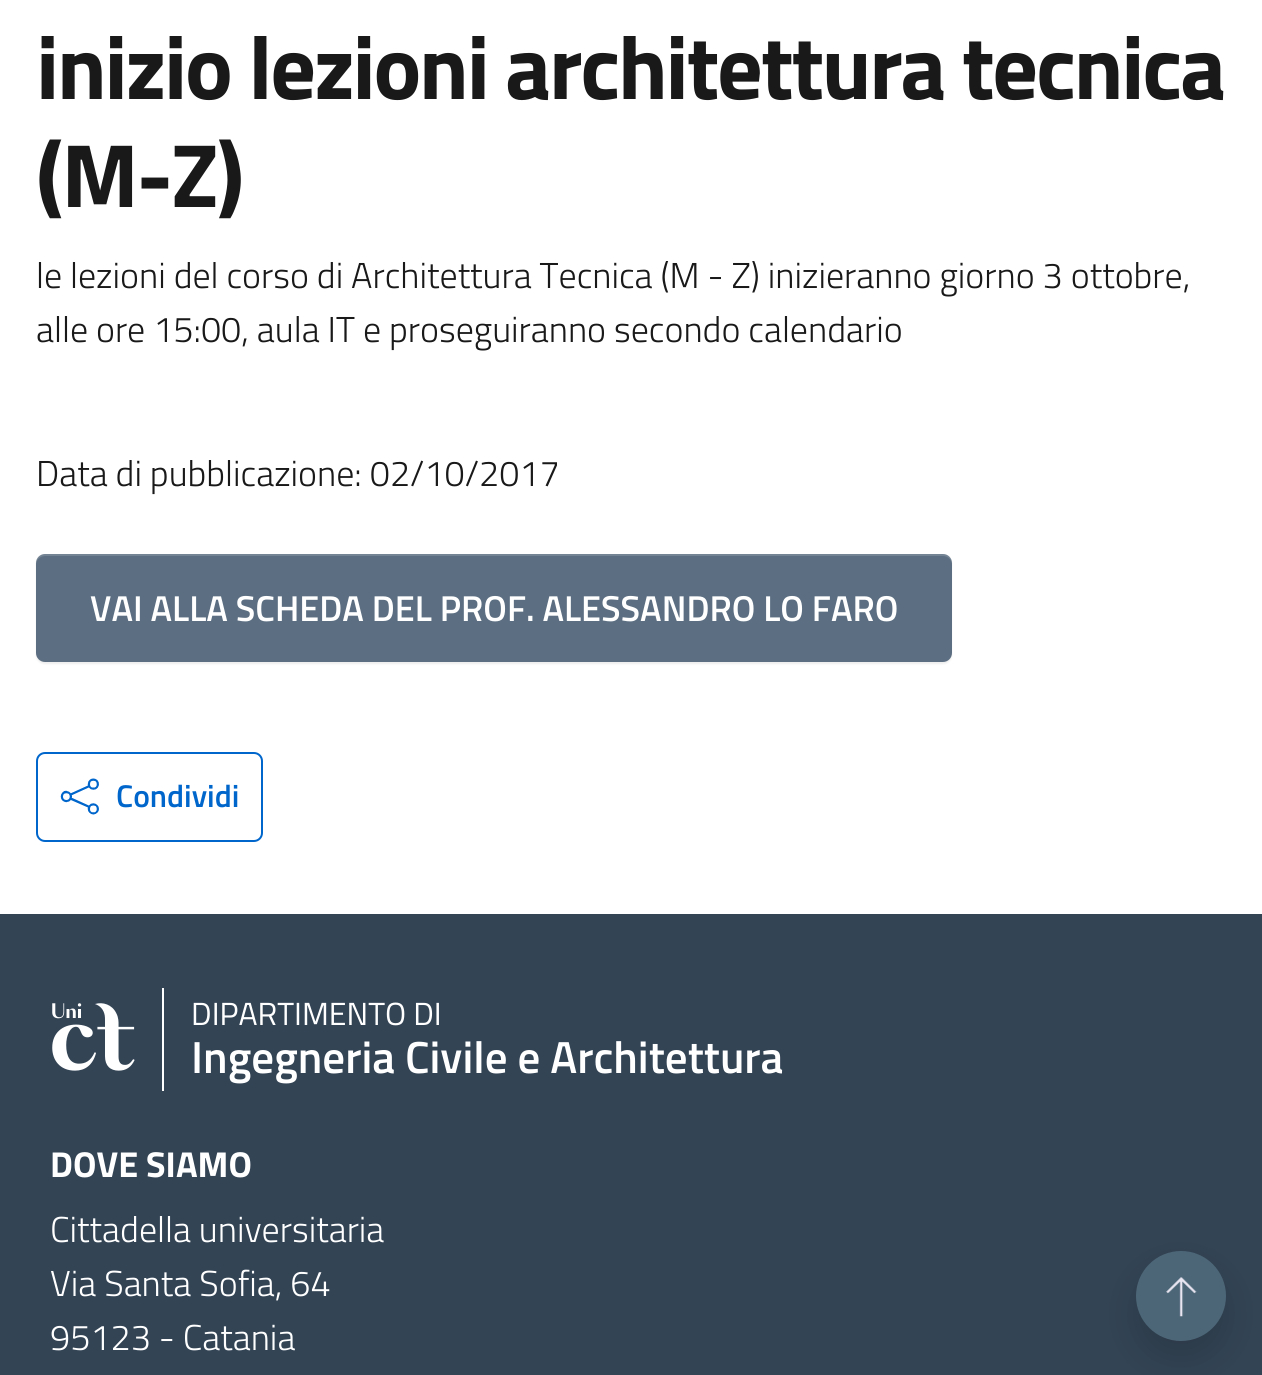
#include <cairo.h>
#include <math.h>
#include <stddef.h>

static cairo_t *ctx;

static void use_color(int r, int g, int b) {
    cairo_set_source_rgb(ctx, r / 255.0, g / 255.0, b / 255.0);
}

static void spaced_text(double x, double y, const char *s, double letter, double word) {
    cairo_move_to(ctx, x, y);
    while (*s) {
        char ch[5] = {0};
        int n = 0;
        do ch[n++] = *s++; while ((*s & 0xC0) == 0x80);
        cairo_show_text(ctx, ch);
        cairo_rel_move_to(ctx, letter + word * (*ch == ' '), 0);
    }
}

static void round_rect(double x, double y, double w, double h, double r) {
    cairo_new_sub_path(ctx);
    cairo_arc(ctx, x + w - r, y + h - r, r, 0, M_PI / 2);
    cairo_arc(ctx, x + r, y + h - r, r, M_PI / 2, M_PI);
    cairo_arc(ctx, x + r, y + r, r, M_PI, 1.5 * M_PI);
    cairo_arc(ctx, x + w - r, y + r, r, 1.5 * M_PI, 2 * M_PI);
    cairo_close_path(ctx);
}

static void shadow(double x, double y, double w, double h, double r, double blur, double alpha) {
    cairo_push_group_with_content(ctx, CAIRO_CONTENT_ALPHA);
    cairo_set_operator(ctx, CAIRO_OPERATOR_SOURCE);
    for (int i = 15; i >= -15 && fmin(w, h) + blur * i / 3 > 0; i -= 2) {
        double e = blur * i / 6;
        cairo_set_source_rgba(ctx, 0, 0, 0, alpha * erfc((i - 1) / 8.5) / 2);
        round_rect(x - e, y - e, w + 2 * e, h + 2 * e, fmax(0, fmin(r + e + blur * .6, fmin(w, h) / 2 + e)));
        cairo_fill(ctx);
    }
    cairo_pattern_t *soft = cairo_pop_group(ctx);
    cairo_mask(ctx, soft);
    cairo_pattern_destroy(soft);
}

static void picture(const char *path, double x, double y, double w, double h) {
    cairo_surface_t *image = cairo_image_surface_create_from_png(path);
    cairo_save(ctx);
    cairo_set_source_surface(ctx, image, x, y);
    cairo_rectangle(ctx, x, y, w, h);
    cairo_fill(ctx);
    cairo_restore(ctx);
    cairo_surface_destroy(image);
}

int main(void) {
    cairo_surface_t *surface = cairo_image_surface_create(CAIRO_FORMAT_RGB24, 1262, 1375);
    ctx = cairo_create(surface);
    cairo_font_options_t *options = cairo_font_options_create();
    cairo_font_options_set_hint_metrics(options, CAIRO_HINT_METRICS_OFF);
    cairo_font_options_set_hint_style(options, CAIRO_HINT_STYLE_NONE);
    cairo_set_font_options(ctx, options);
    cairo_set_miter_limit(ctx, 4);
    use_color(255, 255, 255);
    cairo_paint(ctx);
    cairo_select_font_face(ctx, "Titillium Web", CAIRO_FONT_SLANT_NORMAL, CAIRO_FONT_WEIGHT_BOLD);
    cairo_set_font_size(ctx, 90);
    use_color(25, 25, 26);
    spaced_text(36, 99, "inizio lezioni architettura tecnica", -2.25, 0);
    spaced_text(36, 207, "(M-Z)", -2.25, 0);
    cairo_select_font_face(ctx, "Titillium Web Light", CAIRO_FONT_SLANT_NORMAL, CAIRO_FONT_WEIGHT_NORMAL);
    cairo_set_font_size(ctx, 36);
    cairo_move_to(ctx, 36, 288);
    cairo_show_text(ctx, "le lezioni del corso di Architettura Tecnica (M - Z) inizieranno giorno 3 ottobre,");
    cairo_move_to(ctx, 36, 342);
    cairo_show_text(ctx, "alle ore 15:00, aula IT e proseguiranno secondo calendario");
    cairo_move_to(ctx, 36, 486);
    cairo_show_text(ctx, "Data di pubblicazione: 02/10/2017");
    use_color(0, 0, 0);
    shadow(36, 556, 916, 108, 9, 1, 0.07);
    use_color(92, 111, 130);
    round_rect(36, 554, 916, 108, 9);
    cairo_fill(ctx);
    cairo_set_source_rgba(ctx, 1, 1, 1, 0.15);
    cairo_new_path(ctx);
    cairo_move_to(ctx, 45, 556);
    cairo_line_to(ctx, 943, 556);
    cairo_curve_to(ctx, 948, 556, 952, 560, 952, 565);
    cairo_line_to(ctx, 952, 563);
    cairo_curve_to(ctx, 952, 558, 948, 554, 943, 554);
    cairo_line_to(ctx, 45, 554);
    cairo_curve_to(ctx, 40, 554, 36, 558, 36, 563);
    cairo_line_to(ctx, 36, 565);
    cairo_curve_to(ctx, 36, 560, 40, 556, 45, 556);
    cairo_close_path(ctx);
    cairo_fill(ctx);
    cairo_select_font_face(ctx, "Titillium Web SemiBold", CAIRO_FONT_SLANT_NORMAL, CAIRO_FONT_WEIGHT_NORMAL);
    use_color(255, 255, 255);
    cairo_move_to(ctx, 90, 621);
    cairo_show_text(ctx, "VAI ALLA SCHEDA DEL PROF. ALESSANDRO LO FARO");
    round_rect(37, 753, 225, 88, 8);
    use_color(0, 102, 204);
    cairo_stroke(ctx);
    picture("img1.png", 60, 778, 39, 37);
    cairo_set_font_size(ctx, 31.5);
    cairo_move_to(ctx, 116, 807);
    cairo_show_text(ctx, "Condividi");
    use_color(51, 68, 85);
    cairo_rectangle(ctx, 0, 914, 1262, 461);
    cairo_fill(ctx);
    picture("img2.png", 52, 1003, 83, 68);
    use_color(255, 255, 255);
    cairo_rectangle(ctx, 162, 988, 2, 103);
    cairo_fill(ctx);
    cairo_select_font_face(ctx, "Titillium Web", CAIRO_FONT_SLANT_NORMAL, CAIRO_FONT_WEIGHT_NORMAL);
    cairo_set_font_size(ctx, 32);
    cairo_move_to(ctx, 191, 1025);
    cairo_show_text(ctx, "DIPARTIMENTO DI");
    cairo_select_font_face(ctx, "Titillium Web SemiBold", CAIRO_FONT_SLANT_NORMAL, CAIRO_FONT_WEIGHT_NORMAL);
    cairo_set_font_size(ctx, 45);
    cairo_move_to(ctx, 191, 1073);
    cairo_show_text(ctx, "Ingegneria Civile e Architettura");
    cairo_select_font_face(ctx, "Titillium Web", CAIRO_FONT_SLANT_NORMAL, CAIRO_FONT_WEIGHT_BOLD);
    cairo_set_font_size(ctx, 36);
    cairo_move_to(ctx, 50, 1177);
    cairo_show_text(ctx, "DOVE SIAMO");
    cairo_select_font_face(ctx, "Titillium Web Light", CAIRO_FONT_SLANT_NORMAL, CAIRO_FONT_WEIGHT_NORMAL);
    cairo_move_to(ctx, 50, 1242);
    cairo_show_text(ctx, "Cittadella universitaria");
    cairo_move_to(ctx, 50, 1296);
    cairo_show_text(ctx, "Via Santa Sofia, 64");
    cairo_move_to(ctx, 50, 1350);
    cairo_show_text(ctx, "95123 - Catania");
    use_color(0, 0, 0);
    shadow(1136, 1269, 90, 90, 45, 18, 0.15);
    use_color(76, 102, 119);
    cairo_arc(ctx, 1181, 1296, 45, 0, 2 * M_PI);
    cairo_fill(ctx);
    picture("img3.png", 1166, 1277, 31, 40);
    cairo_surface_write_to_png(surface, "result.png");
    cairo_font_options_destroy(options);
    cairo_destroy(ctx);
    cairo_surface_destroy(surface);
    return 0;
}
